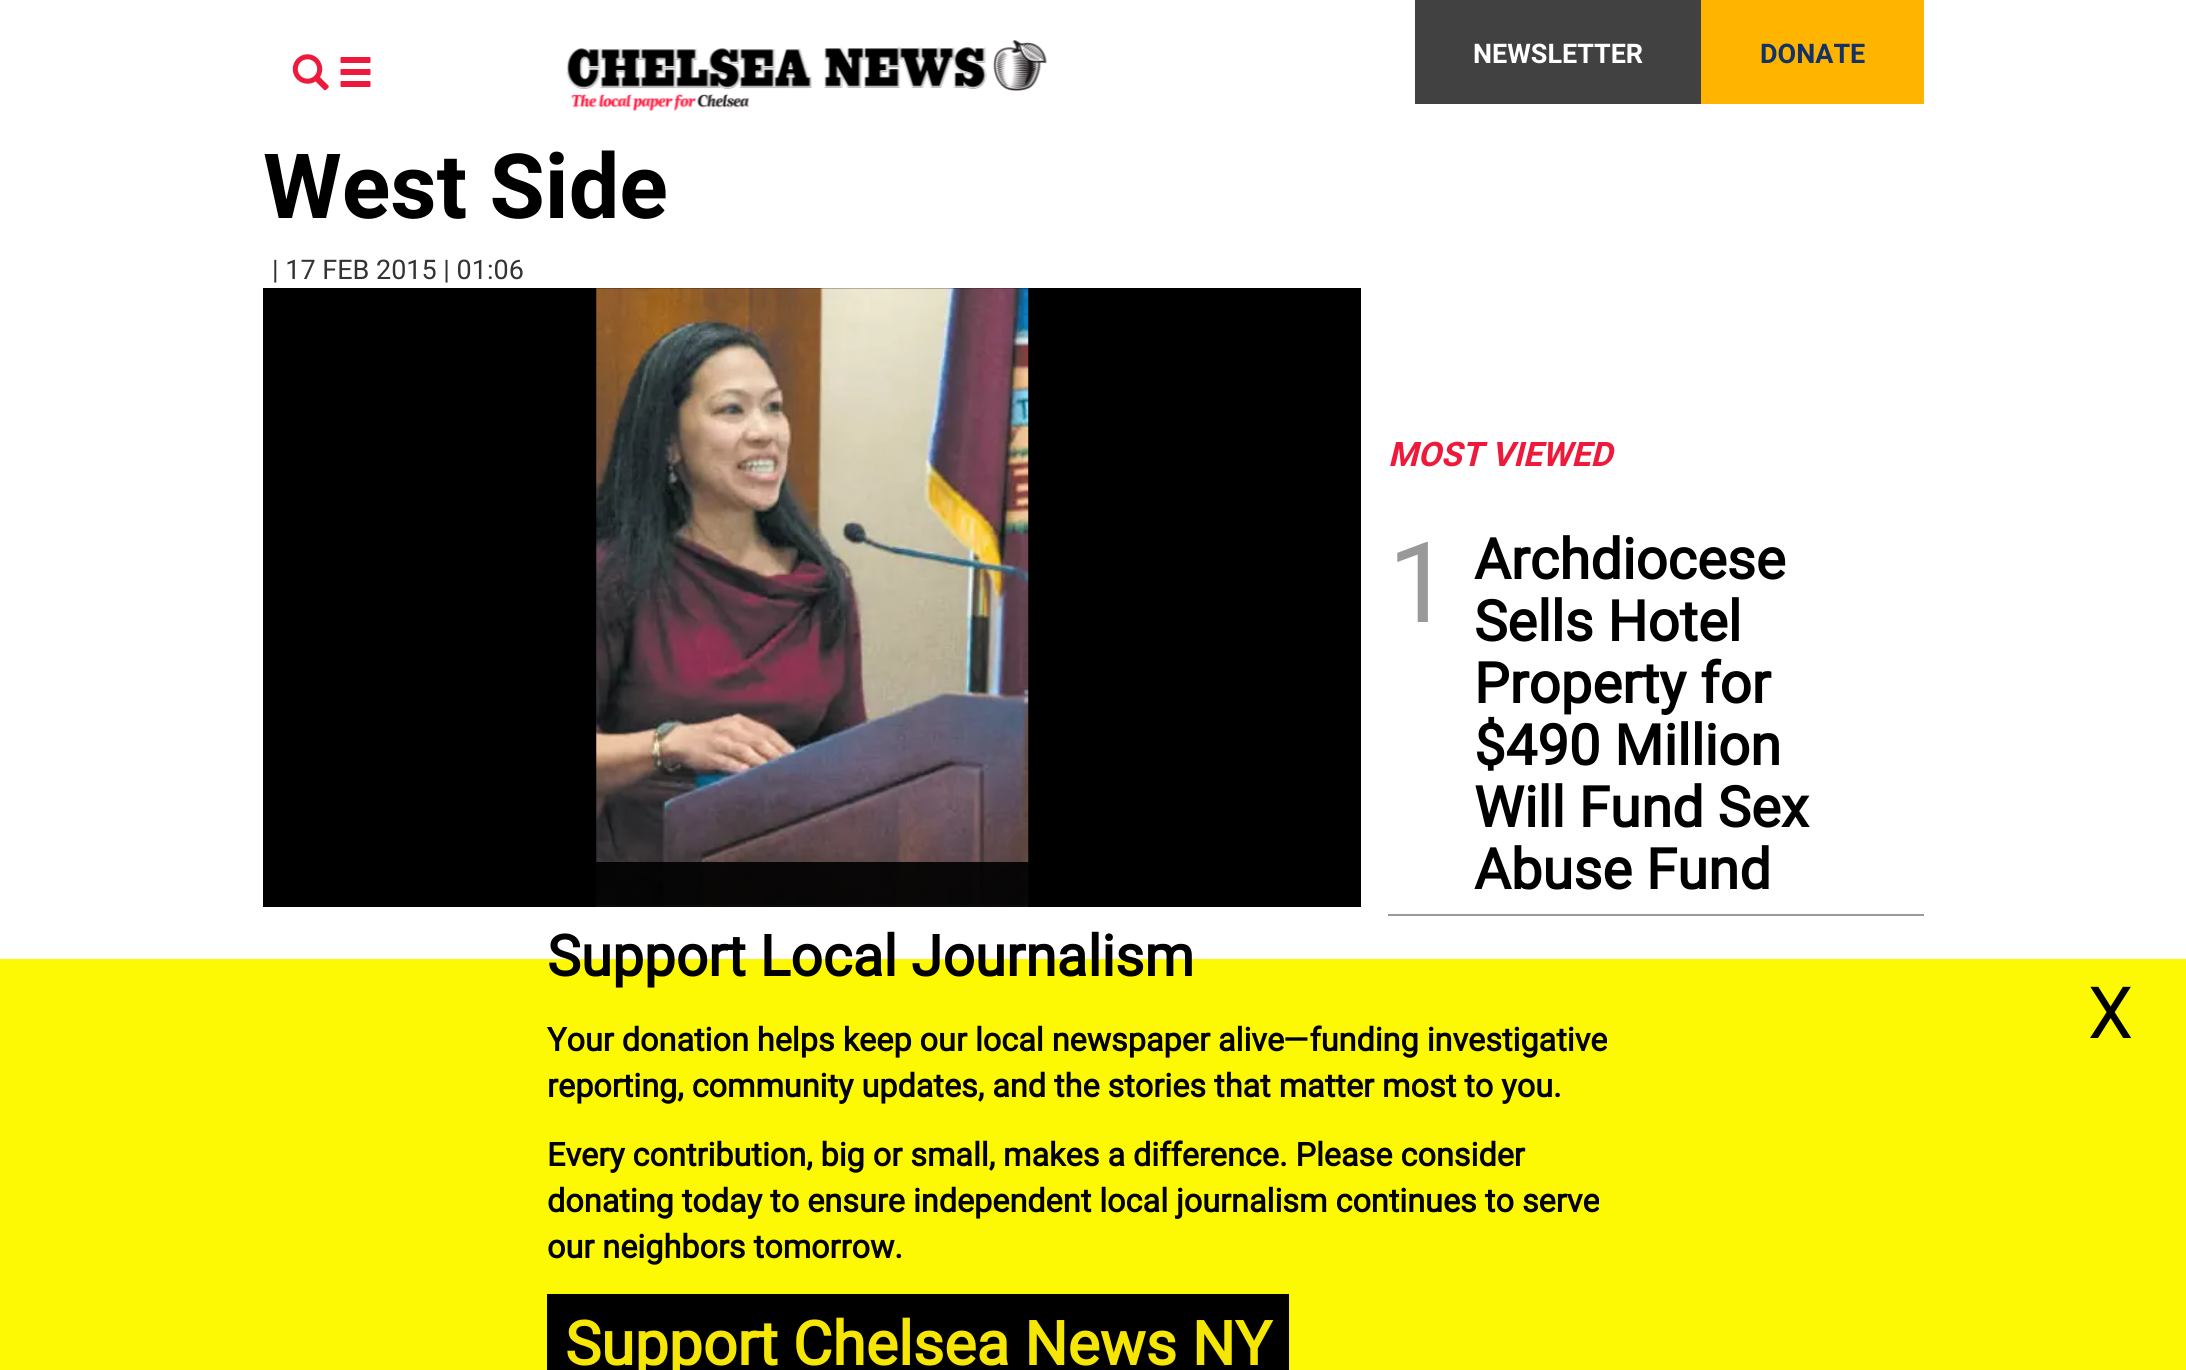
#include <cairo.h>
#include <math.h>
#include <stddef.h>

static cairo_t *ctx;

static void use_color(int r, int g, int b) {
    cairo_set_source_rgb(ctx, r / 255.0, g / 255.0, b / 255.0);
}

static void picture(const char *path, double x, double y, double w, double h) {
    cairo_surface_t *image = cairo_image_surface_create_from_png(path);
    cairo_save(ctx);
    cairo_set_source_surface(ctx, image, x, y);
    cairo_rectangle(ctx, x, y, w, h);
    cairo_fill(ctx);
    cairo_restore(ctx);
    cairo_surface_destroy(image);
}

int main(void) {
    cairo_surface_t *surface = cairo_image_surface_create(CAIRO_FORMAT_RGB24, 2186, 1370);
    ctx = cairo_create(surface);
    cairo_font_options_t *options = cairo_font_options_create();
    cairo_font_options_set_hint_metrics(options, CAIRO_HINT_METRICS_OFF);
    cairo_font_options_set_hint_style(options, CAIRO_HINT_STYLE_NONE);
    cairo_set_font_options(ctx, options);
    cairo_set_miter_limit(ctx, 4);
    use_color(255, 255, 255);
    cairo_paint(ctx);
    picture("img1.png", 292, 54, 79, 37);
    picture("img2.png", 566, 40, 481, 71);
    use_color(65, 65, 65);
    cairo_rectangle(ctx, 1415, 0, 286, 104);
    cairo_fill(ctx);
    cairo_select_font_face(ctx, "Roboto", CAIRO_FONT_SLANT_NORMAL, CAIRO_FONT_WEIGHT_BOLD);
    cairo_set_font_size(ctx, 27);
    use_color(255, 255, 255);
    cairo_move_to(ctx, 1473, 63);
    cairo_show_text(ctx, "NEWSLETTER");
    use_color(255, 180, 0);
    cairo_rectangle(ctx, 1701, 0, 223, 104);
    cairo_fill(ctx);
    use_color(19, 51, 103);
    cairo_move_to(ctx, 1760, 63);
    cairo_show_text(ctx, "DONATE");
    cairo_set_font_size(ctx, 90);
    use_color(0, 0, 0);
    cairo_move_to(ctx, 263, 218);
    cairo_show_text(ctx, "West Side");
    cairo_select_font_face(ctx, "Roboto", CAIRO_FONT_SLANT_NORMAL, CAIRO_FONT_WEIGHT_NORMAL);
    cairo_set_font_size(ctx, 27);
    use_color(51, 51, 51);
    cairo_move_to(ctx, 272, 279);
    cairo_show_text(ctx, "| 17 FEB 2015 | 01:06");
    use_color(0, 0, 0);
    cairo_rectangle(ctx, 263, 288, 1098, 619);
    cairo_fill(ctx);
    picture("img3.png", 596, 288, 433, 619);
    cairo_set_source_rgba(ctx, 0, 0, 0, 0.9);
    cairo_rectangle(ctx, 596, 862, 433, 45);
    cairo_fill(ctx);
    cairo_select_font_face(ctx, "Roboto", CAIRO_FONT_SLANT_ITALIC, CAIRO_FONT_WEIGHT_BOLD);
    cairo_set_font_size(ctx, 33.75);
    use_color(237, 26, 59);
    cairo_move_to(ctx, 1388, 466);
    cairo_show_text(ctx, "MOST VIEWED");
    use_color(153, 153, 153);
    cairo_rectangle(ctx, 1388, 914, 536, 2);
    cairo_fill(ctx);
    cairo_select_font_face(ctx, "Roboto", CAIRO_FONT_SLANT_NORMAL, CAIRO_FONT_WEIGHT_NORMAL);
    cairo_set_font_size(ctx, 112);
    cairo_move_to(ctx, 1388, 622);
    cairo_show_text(ctx, "1");
    cairo_select_font_face(ctx, "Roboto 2", CAIRO_FONT_SLANT_NORMAL, CAIRO_FONT_WEIGHT_BOLD);
    cairo_set_font_size(ctx, 56.25);
    use_color(0, 0, 0);
    cairo_move_to(ctx, 1474, 579);
    cairo_show_text(ctx, "Archdiocese");
    cairo_move_to(ctx, 1474, 641);
    cairo_show_text(ctx, "Sells Hotel");
    cairo_move_to(ctx, 1474, 703);
    cairo_show_text(ctx, "Property for");
    cairo_move_to(ctx, 1474, 765);
    cairo_show_text(ctx, "$490 Million");
    cairo_move_to(ctx, 1474, 827);
    cairo_show_text(ctx, "Will Fund Sex");
    cairo_move_to(ctx, 1474, 889);
    cairo_show_text(ctx, "Abuse Fund");
    use_color(253, 249, 4);
    cairo_rectangle(ctx, 0, 959, 2186, 411);
    cairo_fill(ctx);
    cairo_set_font_size(ctx, 56.75);
    use_color(0, 0, 0);
    cairo_move_to(ctx, 547, 976);
    cairo_show_text(ctx, "Support Local Journalism");
    cairo_set_font_size(ctx, 32.4);
    cairo_move_to(ctx, 547, 1051);
    cairo_show_text(ctx, "Your donation helps keep our local newspaper alive—funding investigative");
    cairo_move_to(ctx, 547, 1097);
    cairo_show_text(ctx, "reporting, community updates, and the stories that matter most to you.");
    cairo_move_to(ctx, 547, 1166);
    cairo_show_text(ctx, "Every contribution, big or small, makes a difference. Please consider");
    cairo_move_to(ctx, 547, 1212);
    cairo_show_text(ctx, "donating today to ensure independent local journalism continues to serve");
    cairo_move_to(ctx, 547, 1258);
    cairo_show_text(ctx, "our neighbors tomorrow.");
    cairo_rectangle(ctx, 547, 1294, 742, 76);
    cairo_fill(ctx);
    cairo_set_font_size(ctx, 60.75);
    use_color(246, 230, 4);
    cairo_move_to(ctx, 565, 1365);
    cairo_show_text(ctx, "Support Chelsea News NY");
    cairo_select_font_face(ctx, "Roboto", CAIRO_FONT_SLANT_NORMAL, CAIRO_FONT_WEIGHT_NORMAL);
    cairo_set_font_size(ctx, 72);
    use_color(0, 0, 0);
    cairo_move_to(ctx, 2088, 1038);
    cairo_show_text(ctx, "X");
    cairo_surface_write_to_png(surface, "result.png");
    cairo_font_options_destroy(options);
    cairo_destroy(ctx);
    cairo_surface_destroy(surface);
    return 0;
}
